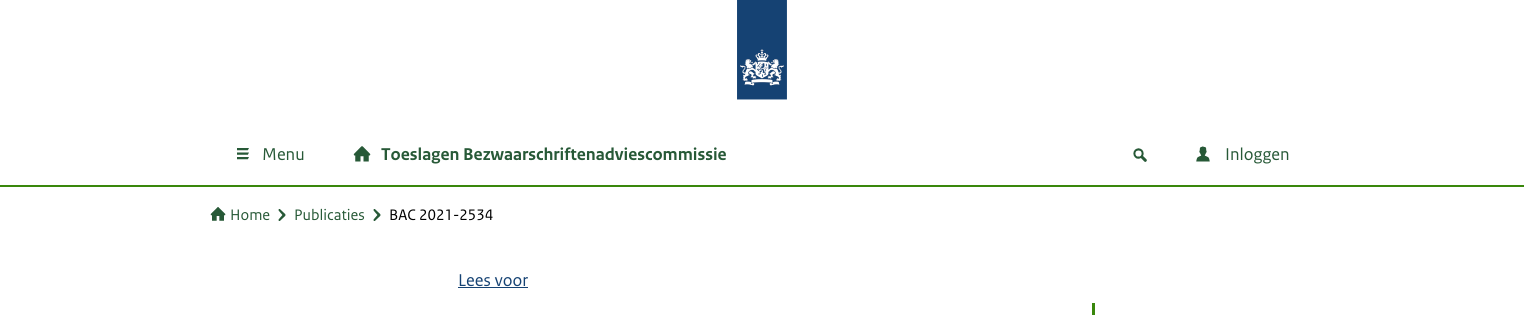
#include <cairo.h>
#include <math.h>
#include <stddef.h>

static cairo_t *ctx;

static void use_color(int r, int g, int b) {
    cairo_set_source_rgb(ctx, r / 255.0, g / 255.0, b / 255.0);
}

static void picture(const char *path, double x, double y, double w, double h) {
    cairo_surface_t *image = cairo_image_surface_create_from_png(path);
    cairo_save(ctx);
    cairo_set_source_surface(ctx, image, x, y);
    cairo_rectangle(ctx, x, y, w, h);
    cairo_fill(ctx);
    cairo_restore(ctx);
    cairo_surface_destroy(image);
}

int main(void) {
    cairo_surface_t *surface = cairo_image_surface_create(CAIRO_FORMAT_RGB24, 1524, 315);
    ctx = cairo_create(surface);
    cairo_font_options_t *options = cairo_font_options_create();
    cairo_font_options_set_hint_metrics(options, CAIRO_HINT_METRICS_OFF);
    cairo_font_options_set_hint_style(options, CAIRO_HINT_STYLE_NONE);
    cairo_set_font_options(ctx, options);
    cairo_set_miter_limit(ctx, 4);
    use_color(255, 255, 255);
    cairo_paint(ctx);
    picture("img1.png", 737, 0, 50, 100);
    use_color(57, 135, 12);
    cairo_rectangle(ctx, 0, 185, 1524, 2);
    cairo_fill(ctx);
    picture("img2.png", 237, 148, 12, 12);
    cairo_select_font_face(ctx, "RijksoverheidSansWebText", CAIRO_FONT_SLANT_NORMAL, CAIRO_FONT_WEIGHT_NORMAL);
    cairo_set_font_size(ctx, 18);
    use_color(39, 89, 55);
    cairo_move_to(ctx, 262, 160);
    cairo_show_text(ctx, "Menu");
    picture("img3.png", 353, 146, 18, 16);
    cairo_select_font_face(ctx, "RijksoverheidSansWebText", CAIRO_FONT_SLANT_NORMAL, CAIRO_FONT_WEIGHT_BOLD);
    cairo_move_to(ctx, 381, 160);
    cairo_show_text(ctx, "Toeslagen Bezwaarschriftenadviescommissie");
    picture("img4.png", 1133, 148, 14, 14);
    picture("img5.png", 1196, 146, 14, 16);
    cairo_select_font_face(ctx, "RijksoverheidSansWebText", CAIRO_FONT_SLANT_NORMAL, CAIRO_FONT_WEIGHT_NORMAL);
    cairo_move_to(ctx, 1225, 160);
    cairo_show_text(ctx, "Inloggen");
    picture("img6.png", 210, 207, 16, 14);
    cairo_set_font_size(ctx, 16);
    cairo_move_to(ctx, 230, 220);
    cairo_show_text(ctx, "Home");
    picture("img7.png", 278, 209, 8, 12);
    cairo_move_to(ctx, 294, 220);
    cairo_show_text(ctx, "Publicaties");
    picture("img7.png", 373, 209, 8, 12);
    use_color(0, 0, 0);
    cairo_move_to(ctx, 389, 220);
    cairo_show_text(ctx, "BAC 2021-2534");
    cairo_set_font_size(ctx, 18);
    use_color(21, 66, 115);
    cairo_move_to(ctx, 458, 286);
    cairo_show_text(ctx, "Lees voor");
    cairo_rectangle(ctx, 458, 287, 70, 1);
    cairo_fill(ctx);
    use_color(57, 135, 12);
    cairo_rectangle(ctx, 1092, 303, 3, 12);
    cairo_fill(ctx);
    cairo_surface_write_to_png(surface, "result.png");
    cairo_font_options_destroy(options);
    cairo_destroy(ctx);
    cairo_surface_destroy(surface);
    return 0;
}
